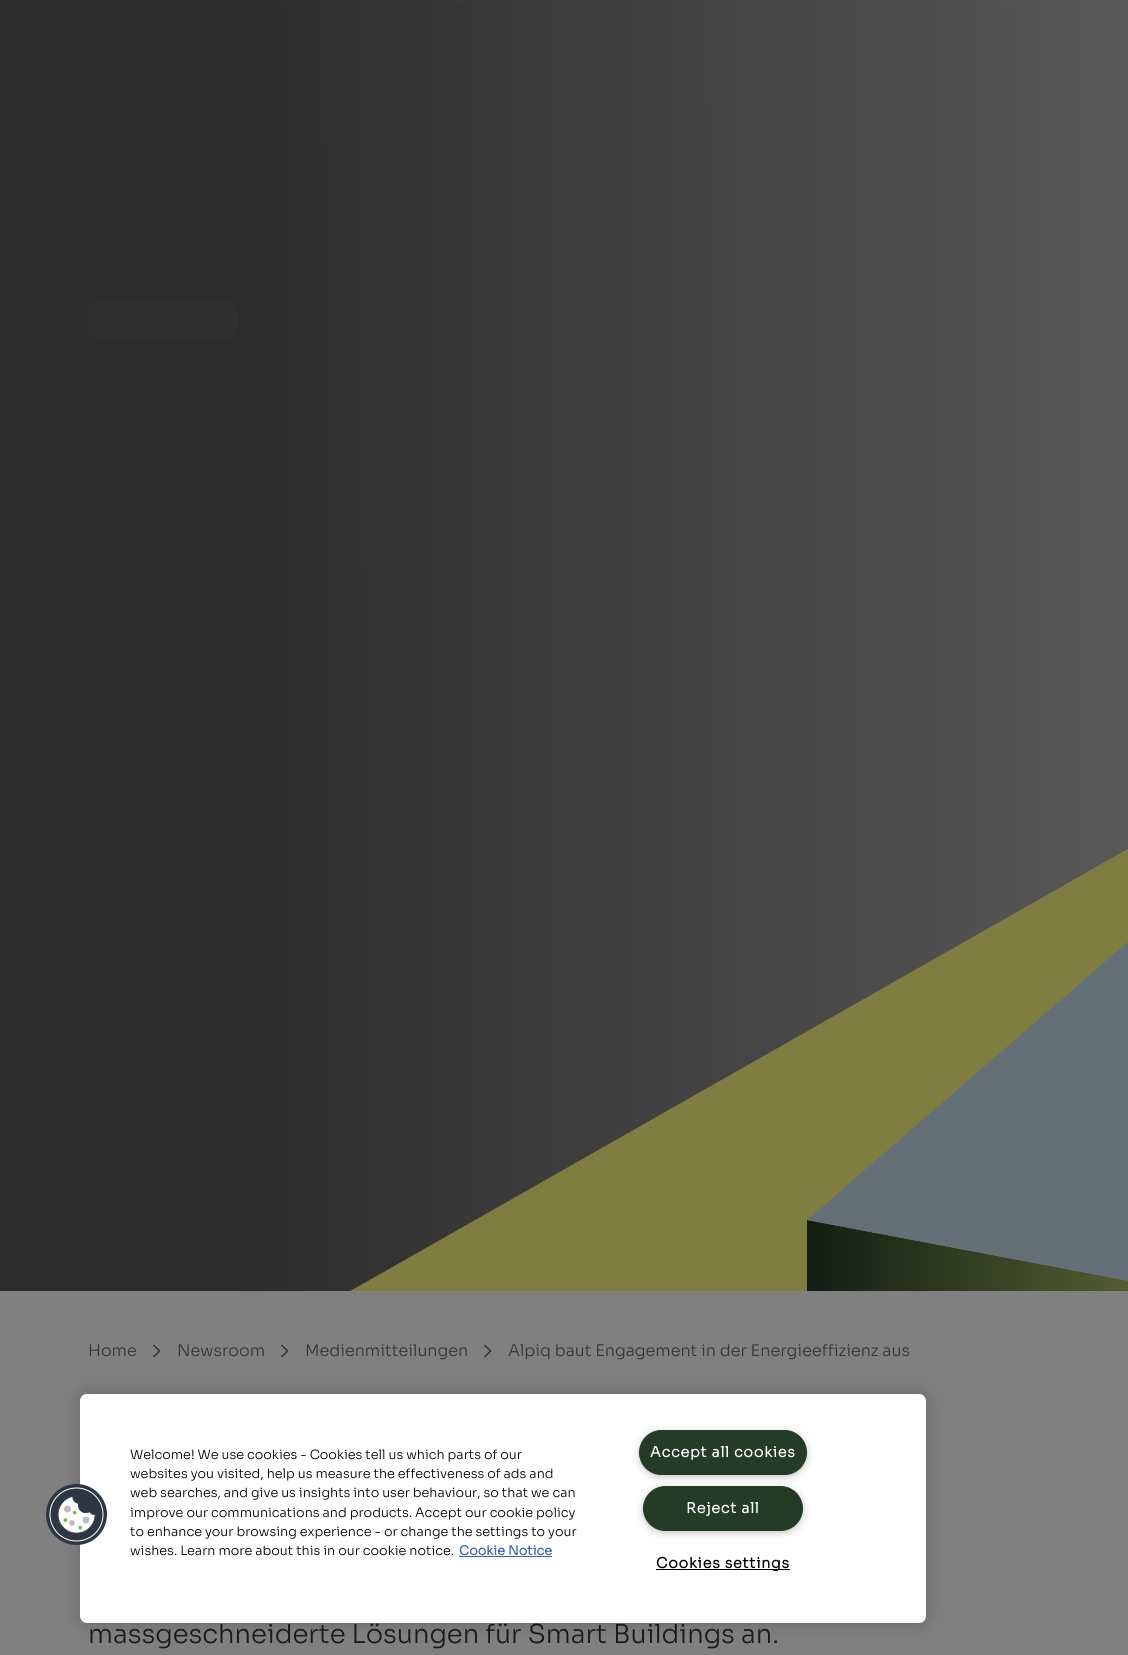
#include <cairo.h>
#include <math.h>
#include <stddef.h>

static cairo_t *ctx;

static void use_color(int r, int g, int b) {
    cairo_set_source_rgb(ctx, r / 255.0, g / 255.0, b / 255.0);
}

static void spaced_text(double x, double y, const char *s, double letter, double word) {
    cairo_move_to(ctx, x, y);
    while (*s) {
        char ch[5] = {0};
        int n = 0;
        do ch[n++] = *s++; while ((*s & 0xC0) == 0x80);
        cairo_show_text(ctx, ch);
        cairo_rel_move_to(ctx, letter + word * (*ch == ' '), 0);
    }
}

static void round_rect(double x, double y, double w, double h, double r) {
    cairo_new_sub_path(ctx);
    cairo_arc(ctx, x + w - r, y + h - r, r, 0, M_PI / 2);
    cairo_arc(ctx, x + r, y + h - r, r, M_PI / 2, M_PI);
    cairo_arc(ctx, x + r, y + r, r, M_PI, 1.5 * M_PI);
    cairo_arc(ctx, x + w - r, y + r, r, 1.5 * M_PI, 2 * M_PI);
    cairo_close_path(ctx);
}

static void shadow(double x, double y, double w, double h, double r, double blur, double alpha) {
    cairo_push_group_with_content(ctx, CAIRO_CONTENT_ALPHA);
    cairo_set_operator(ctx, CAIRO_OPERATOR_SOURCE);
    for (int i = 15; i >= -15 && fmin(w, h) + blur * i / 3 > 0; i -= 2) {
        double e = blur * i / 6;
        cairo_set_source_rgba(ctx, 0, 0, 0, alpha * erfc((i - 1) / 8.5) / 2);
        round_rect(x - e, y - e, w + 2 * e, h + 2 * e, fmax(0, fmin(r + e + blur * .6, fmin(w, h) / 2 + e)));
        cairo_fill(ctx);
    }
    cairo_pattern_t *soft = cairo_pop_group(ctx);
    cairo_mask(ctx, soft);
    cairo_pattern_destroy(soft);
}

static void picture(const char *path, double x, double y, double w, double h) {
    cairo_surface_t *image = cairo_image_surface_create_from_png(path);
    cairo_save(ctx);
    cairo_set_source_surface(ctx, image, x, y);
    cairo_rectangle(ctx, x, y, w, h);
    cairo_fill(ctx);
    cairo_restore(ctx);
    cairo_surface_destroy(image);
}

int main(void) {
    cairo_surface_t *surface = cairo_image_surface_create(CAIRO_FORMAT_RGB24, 1128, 1655);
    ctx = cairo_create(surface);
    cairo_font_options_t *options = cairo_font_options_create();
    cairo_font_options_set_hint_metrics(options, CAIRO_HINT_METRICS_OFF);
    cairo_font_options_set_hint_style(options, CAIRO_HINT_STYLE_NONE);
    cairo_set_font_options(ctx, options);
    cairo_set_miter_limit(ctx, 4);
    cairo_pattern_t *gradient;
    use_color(128, 128, 128);
    cairo_paint(ctx);
    gradient = cairo_pattern_create_linear(1128, 645, 0, 646);
    cairo_pattern_add_color_stop_rgba(gradient, 0, 0.345, 0.345, 0.345, 1);
    cairo_pattern_add_color_stop_rgba(gradient, 0.79, 0.173, 0.173, 0.173, 1);
    cairo_set_source(ctx, gradient);
    cairo_pattern_destroy(gradient);
    cairo_rectangle(ctx, 0, 0, 1128, 1291);
    cairo_fill(ctx);
    picture("img1.png", 88, 0, 101, 16);
    cairo_new_path(ctx);
    cairo_move_to(ctx, 286, -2.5);
    cairo_line_to(ctx, 280.5, 3);
    cairo_line_to(ctx, 275.5, -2.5);
    use_color(50, 50, 50);
    cairo_set_line_width(ctx, 1.5);
    cairo_set_line_cap(ctx, CAIRO_LINE_CAP_SQUARE);
    cairo_stroke(ctx);
    cairo_new_path(ctx);
    cairo_move_to(ctx, 465, -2.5);
    cairo_line_to(ctx, 459.5, 3);
    cairo_line_to(ctx, 454.5, -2.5);
    use_color(59, 59, 59);
    cairo_stroke(ctx);
    cairo_new_path(ctx);
    cairo_move_to(ctx, 587, -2.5);
    cairo_line_to(ctx, 582, 3);
    cairo_line_to(ctx, 576.5, -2.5);
    use_color(64, 64, 64);
    cairo_stroke(ctx);
    cairo_new_path(ctx);
    cairo_move_to(ctx, 716.5, -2.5);
    cairo_line_to(ctx, 711, 3);
    cairo_line_to(ctx, 705.5, -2.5);
    use_color(71, 71, 71);
    cairo_stroke(ctx);
    cairo_new_path(ctx);
    cairo_move_to(ctx, 863.5, -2.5);
    cairo_line_to(ctx, 858, 3);
    cairo_line_to(ctx, 852.5, -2.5);
    use_color(77, 73, 71);
    cairo_stroke(ctx);
    cairo_new_path(ctx);
    cairo_move_to(ctx, 961.5, -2.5);
    cairo_line_to(ctx, 956, 2.5);
    cairo_line_to(ctx, 950.5, -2.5);
    use_color(82, 82, 82);
    cairo_stroke(ctx);
    picture("img2.png", 1005, 0, 13, 5);
    use_color(48, 48, 48);
    round_rect(88, 303, 149, 34, 4);
    cairo_fill(ctx);
    cairo_save(ctx);
    cairo_rectangle(ctx, 308, 741, 820, 550);
    cairo_clip(ctx);
    use_color(128, 125, 65);
    cairo_new_path(ctx);
    cairo_move_to(ctx, 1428, 1220);
    cairo_line_to(ctx, 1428, 1315);
    cairo_line_to(ctx, 308, 1315);
    cairo_line_to(ctx, 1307, 747);
    cairo_close_path(ctx);
    cairo_fill(ctx);
    gradient = cairo_pattern_create_linear(807, 1284, 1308, 1284);
    cairo_pattern_add_color_stop_rgba(gradient, 0, 0.071, 0.118, 0.075, 1);
    cairo_pattern_add_color_stop_rgba(gradient, 1, 0.471, 0.502, 0.255, 1);
    cairo_set_source(ctx, gradient);
    cairo_pattern_destroy(gradient);
    cairo_new_path(ctx);
    cairo_move_to(ctx, 807, 1315);
    cairo_line_to(ctx, 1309, 1347);
    cairo_line_to(ctx, 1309, 1315);
    cairo_line_to(ctx, 807, 1220);
    cairo_close_path(ctx);
    cairo_fill(ctx);
    cairo_restore(ctx);
    use_color(100, 112, 119);
    cairo_new_path(ctx);
    cairo_move_to(ctx, 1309, 1315);
    cairo_line_to(ctx, 807, 1220);
    cairo_line_to(ctx, 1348, 751);
    cairo_line_to(ctx, 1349, 1319);
    cairo_close_path(ctx);
    cairo_fill(ctx);
    cairo_select_font_face(ctx, "Sora Light", CAIRO_FONT_SLANT_NORMAL, CAIRO_FONT_WEIGHT_NORMAL);
    cairo_set_font_size(ctx, 16);
    use_color(52, 52, 52);
    cairo_move_to(ctx, 88, 1356);
    cairo_show_text(ctx, "Home");
    cairo_new_path(ctx);
    cairo_move_to(ctx, 154, 1345.5);
    cairo_line_to(ctx, 159.5, 1351);
    cairo_line_to(ctx, 154, 1356.5);
    cairo_stroke(ctx);
    cairo_move_to(ctx, 177, 1356);
    cairo_show_text(ctx, "Newsroom");
    cairo_new_path(ctx);
    cairo_move_to(ctx, 282, 1345.5);
    cairo_line_to(ctx, 287.5, 1351);
    cairo_line_to(ctx, 282, 1356.5);
    cairo_stroke(ctx);
    cairo_move_to(ctx, 305, 1356);
    cairo_show_text(ctx, "Medienmitteilungen");
    cairo_new_path(ctx);
    cairo_move_to(ctx, 485, 1345.5);
    cairo_line_to(ctx, 490.5, 1351);
    cairo_line_to(ctx, 485, 1356.5);
    cairo_stroke(ctx);
    cairo_move_to(ctx, 508, 1356);
    cairo_show_text(ctx, "Alpiq baut Engagement in der Energieeffizienz aus");
    cairo_set_font_size(ctx, 26);
    use_color(26, 26, 26);
    cairo_move_to(ctx, 88, 1643);
    cairo_show_text(ctx, "massgeschneiderte Lösungen für Smart Buildings an.");
    use_color(0, 0, 0);
    shadow(80, 1394, 846, 229, 7, 9, 0.2);
    use_color(255, 255, 255);
    round_rect(80, 1394, 846, 229, 7);
    cairo_fill(ctx);
    picture("img3.png", 46, 1484, 61, 61);
    cairo_set_font_size(ctx, 12.8);
    use_color(0, 0, 0);
    cairo_move_to(ctx, 130, 1459);
    cairo_show_text(ctx, "Welcome! We use cookies - Cookies tell us which parts of our");
    cairo_move_to(ctx, 130, 1478);
    cairo_show_text(ctx, "websites you visited, help us measure the effectiveness of ads and");
    cairo_move_to(ctx, 130, 1497);
    cairo_show_text(ctx, "web searches, and give us insights into user behaviour, so that we can");
    cairo_move_to(ctx, 130, 1517);
    cairo_show_text(ctx, "improve our communications and products. Accept our cookie policy");
    cairo_move_to(ctx, 130, 1536);
    cairo_show_text(ctx, "to enhance your browsing experience - or change the settings to your");
    cairo_move_to(ctx, 130, 1555);
    cairo_show_text(ctx, "wishes. Learn more about this in our cookie notice.");
    cairo_select_font_face(ctx, "Sora", CAIRO_FONT_SLANT_NORMAL, CAIRO_FONT_WEIGHT_BOLD);
    use_color(56, 96, 190);
    cairo_move_to(ctx, 459, 1555);
    cairo_show_text(ctx, "Cookie Notice");
    cairo_rectangle(ctx, 459, 1556, 93, 1);
    cairo_fill(ctx);
    use_color(153, 153, 153);
    shadow(642, 1435, 162, 39, 19.5, 5, 1);
    use_color(36, 59, 38);
    round_rect(639.5, 1430.5, 167, 44, 22);
    cairo_fill_preserve(ctx);
    cairo_set_line_width(ctx, 1);
    cairo_set_line_cap(ctx, CAIRO_LINE_CAP_BUTT);
    cairo_stroke(ctx);
    cairo_set_font_size(ctx, 14.4);
    use_color(255, 255, 255);
    spaced_text(650, 1457, "Accept all cookies", 0.75, 0);
    use_color(153, 153, 153);
    shadow(646, 1491, 154, 39, 19.5, 5, 1);
    use_color(36, 59, 38);
    round_rect(643.5, 1486.5, 159, 44, 22);
    cairo_fill_preserve(ctx);
    cairo_stroke(ctx);
    use_color(255, 255, 255);
    spaced_text(686, 1513, "Reject all", 0.75, 0);
    use_color(0, 0, 0);
    cairo_rectangle(ctx, 656, 1569, 134, 1);
    cairo_fill(ctx);
    spaced_text(656, 1568, "Cookies settings", 0.75, 0);
    cairo_surface_write_to_png(surface, "result.png");
    cairo_font_options_destroy(options);
    cairo_destroy(ctx);
    cairo_surface_destroy(surface);
    return 0;
}
